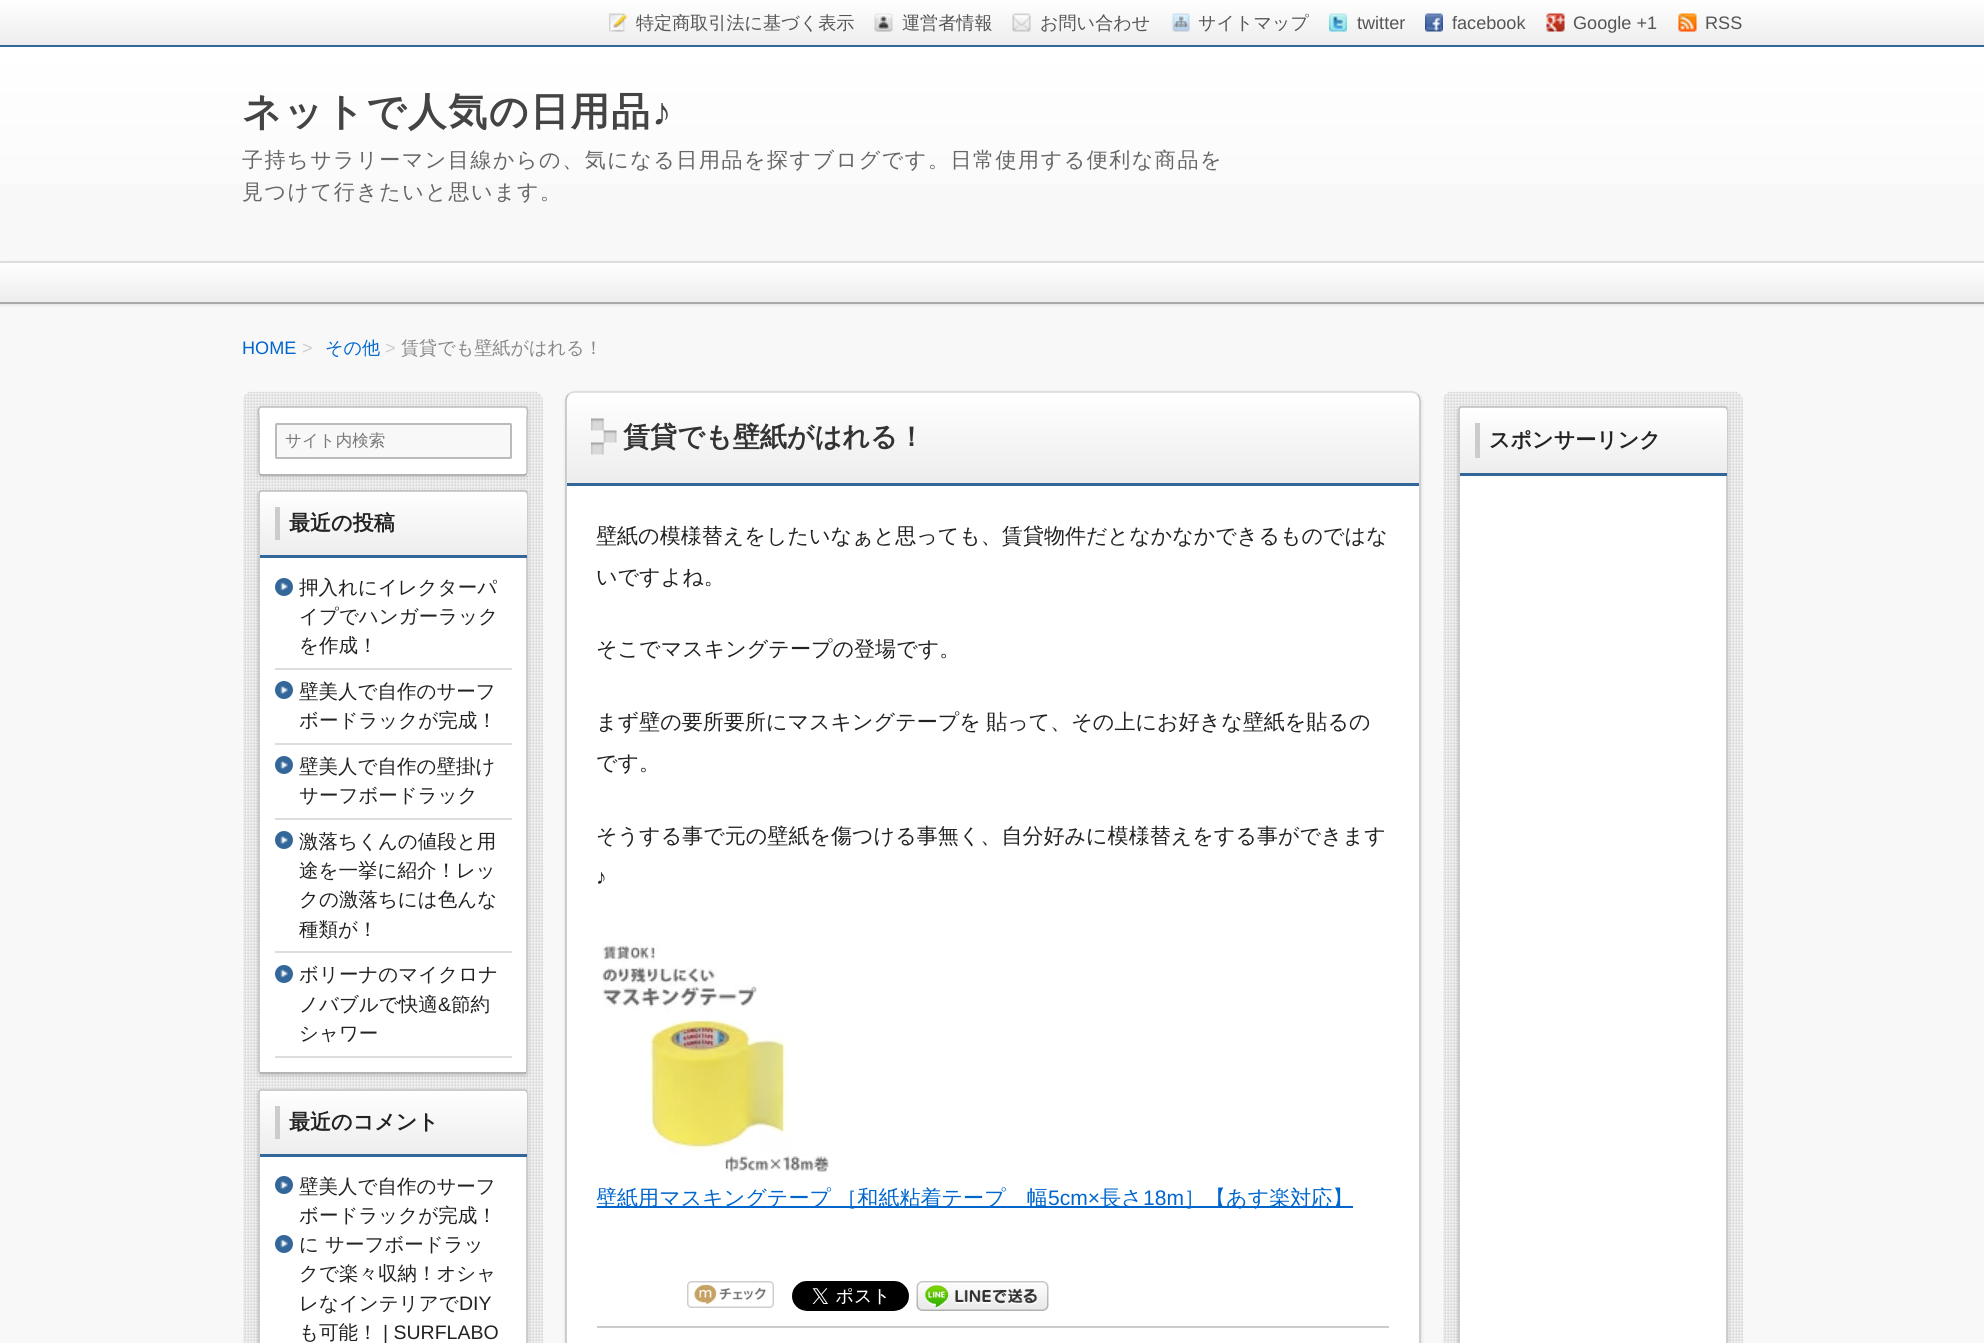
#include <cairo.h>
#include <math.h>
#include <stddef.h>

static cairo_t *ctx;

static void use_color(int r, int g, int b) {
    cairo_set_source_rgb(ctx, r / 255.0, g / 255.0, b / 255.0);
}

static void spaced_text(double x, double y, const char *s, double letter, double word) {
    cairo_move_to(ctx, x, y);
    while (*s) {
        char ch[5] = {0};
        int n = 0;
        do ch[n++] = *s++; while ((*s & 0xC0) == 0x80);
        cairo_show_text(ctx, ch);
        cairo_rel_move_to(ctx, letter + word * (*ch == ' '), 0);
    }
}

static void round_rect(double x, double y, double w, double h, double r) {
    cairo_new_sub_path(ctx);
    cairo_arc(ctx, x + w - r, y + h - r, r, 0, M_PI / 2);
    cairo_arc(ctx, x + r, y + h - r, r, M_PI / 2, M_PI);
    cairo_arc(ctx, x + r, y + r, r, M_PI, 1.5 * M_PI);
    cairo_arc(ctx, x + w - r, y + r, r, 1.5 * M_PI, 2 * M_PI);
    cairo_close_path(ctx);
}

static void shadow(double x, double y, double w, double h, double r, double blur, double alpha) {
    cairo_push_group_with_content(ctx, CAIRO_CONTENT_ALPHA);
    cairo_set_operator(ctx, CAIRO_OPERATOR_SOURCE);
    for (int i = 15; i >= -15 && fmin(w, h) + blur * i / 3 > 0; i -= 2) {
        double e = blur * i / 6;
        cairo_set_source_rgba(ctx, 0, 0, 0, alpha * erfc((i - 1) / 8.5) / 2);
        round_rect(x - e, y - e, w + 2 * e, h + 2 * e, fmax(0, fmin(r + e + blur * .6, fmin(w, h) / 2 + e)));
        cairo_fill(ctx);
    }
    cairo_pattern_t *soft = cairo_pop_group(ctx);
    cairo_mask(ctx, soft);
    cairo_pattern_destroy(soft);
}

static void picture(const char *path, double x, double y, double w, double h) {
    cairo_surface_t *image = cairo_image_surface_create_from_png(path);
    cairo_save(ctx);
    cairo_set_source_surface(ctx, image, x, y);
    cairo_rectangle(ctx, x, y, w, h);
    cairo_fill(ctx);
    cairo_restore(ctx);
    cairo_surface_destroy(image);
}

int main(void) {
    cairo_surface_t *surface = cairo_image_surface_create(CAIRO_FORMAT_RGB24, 1984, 1343);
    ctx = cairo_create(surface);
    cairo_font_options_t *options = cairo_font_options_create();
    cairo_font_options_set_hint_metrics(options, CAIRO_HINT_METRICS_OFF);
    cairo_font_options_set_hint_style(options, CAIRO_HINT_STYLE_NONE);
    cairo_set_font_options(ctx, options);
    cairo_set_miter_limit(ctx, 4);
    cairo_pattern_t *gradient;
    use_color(248, 248, 248);
    cairo_paint(ctx);
    gradient = cairo_pattern_create_linear(992, 0, 992, 45);
    cairo_pattern_add_color_stop_rgba(gradient, 0, 1, 1, 1, 1);
    cairo_pattern_add_color_stop_rgba(gradient, 1, 0.929, 0.929, 0.929, 1);
    cairo_set_source(ctx, gradient);
    cairo_pattern_destroy(gradient);
    cairo_rectangle(ctx, 0, 0, 1984, 45);
    cairo_fill(ctx);
    picture("img1.png", 609, 13, 18, 19);
    cairo_select_font_face(ctx, "WenQuanYi Zen Hei Medium", CAIRO_FONT_SLANT_NORMAL, CAIRO_FONT_WEIGHT_NORMAL);
    cairo_set_font_size(ctx, 18.1);
    use_color(85, 85, 85);
    cairo_move_to(ctx, 636, 29);
    cairo_show_text(ctx, "特定商取引法に基づく表示");
    picture("img2.png", 874, 13, 19, 19);
    cairo_move_to(ctx, 902, 29);
    cairo_show_text(ctx, "運営者情報");
    picture("img3.png", 1012, 13, 19, 19);
    cairo_move_to(ctx, 1040, 29);
    cairo_show_text(ctx, "お問い合わせ");
    picture("img4.png", 1171, 13, 19, 19);
    cairo_move_to(ctx, 1198, 29);
    cairo_show_text(ctx, "サイトマップ");
    picture("img5.png", 1329, 13, 18, 19);
    cairo_select_font_face(ctx, "Liberation Sans", CAIRO_FONT_SLANT_NORMAL, CAIRO_FONT_WEIGHT_NORMAL);
    cairo_move_to(ctx, 1357, 29);
    cairo_show_text(ctx, "twitter");
    picture("img6.png", 1425, 13, 18, 19);
    cairo_move_to(ctx, 1452, 29);
    cairo_show_text(ctx, "facebook");
    picture("img7.png", 1546, 13, 19, 19);
    cairo_move_to(ctx, 1573, 29);
    cairo_show_text(ctx, "Google +1");
    picture("img8.png", 1678, 13, 19, 19);
    cairo_move_to(ctx, 1705, 29);
    cairo_show_text(ctx, "RSS");
    gradient = cairo_pattern_create_linear(992, 46, 992, 261);
    cairo_pattern_add_color_stop_rgba(gradient, 0, 1, 1, 1, 1);
    cairo_pattern_add_color_stop_rgba(gradient, 1, 0.973, 0.973, 0.973, 1);
    cairo_set_source(ctx, gradient);
    cairo_pattern_destroy(gradient);
    cairo_rectangle(ctx, 0, 47, 1984, 137);
    cairo_fill(ctx);
    use_color(51, 102, 153);
    cairo_rectangle(ctx, 0, 45, 1984, 2);
    cairo_fill(ctx);
    cairo_select_font_face(ctx, "WenQuanYi Zen Hei", CAIRO_FONT_SLANT_NORMAL, CAIRO_FONT_WEIGHT_BOLD);
    cairo_set_font_size(ctx, 39);
    use_color(68, 68, 68);
    spaced_text(242, 125, "ネットで人気の日用品", 1.5, 0);
    cairo_select_font_face(ctx, "Liberation Sans", CAIRO_FONT_SLANT_NORMAL, CAIRO_FONT_WEIGHT_BOLD);
    spaced_text(652, 125, "♪", 1.5, 0);
    cairo_select_font_face(ctx, "WenQuanYi Zen Hei Medium", CAIRO_FONT_SLANT_NORMAL, CAIRO_FONT_WEIGHT_NORMAL);
    cairo_set_font_size(ctx, 21.05);
    use_color(102, 102, 102);
    spaced_text(242, 167, "子持ちサラリーマン目線からの、気になる日用品を探すブログです。日常使用する便利な商品を", 1.5, 0);
    spaced_text(242, 199, "見つけて行きたいと思います。", 1.5, 0);
    use_color(0, 0, 0);
    shadow(0, 263, 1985, 42, 0, 1.5, 0.1);
    gradient = cairo_pattern_create_linear(992, 262, 992, 302);
    cairo_pattern_add_color_stop_rgba(gradient, 0, 1, 1, 1, 1);
    cairo_pattern_add_color_stop_rgba(gradient, 1, 0.929, 0.929, 0.929, 1);
    cairo_set_source(ctx, gradient);
    cairo_pattern_destroy(gradient);
    cairo_rectangle(ctx, 0, 263, 1984, 39);
    cairo_fill(ctx);
    use_color(221, 221, 221);
    cairo_rectangle(ctx, 0, 261, 1984, 2);
    cairo_fill(ctx);
    use_color(170, 170, 170);
    cairo_rectangle(ctx, 0, 302, 1984, 2);
    cairo_fill(ctx);
    cairo_select_font_face(ctx, "Liberation Sans", CAIRO_FONT_SLANT_NORMAL, CAIRO_FONT_WEIGHT_NORMAL);
    cairo_set_font_size(ctx, 18.1);
    use_color(0, 102, 204);
    cairo_move_to(ctx, 242, 354);
    cairo_show_text(ctx, "HOME");
    use_color(204, 204, 204);
    cairo_move_to(ctx, 302, 354);
    cairo_show_text(ctx, ">");
    cairo_select_font_face(ctx, "WenQuanYi Zen Hei Medium", CAIRO_FONT_SLANT_NORMAL, CAIRO_FONT_WEIGHT_NORMAL);
    use_color(0, 102, 204);
    cairo_move_to(ctx, 325, 354);
    cairo_show_text(ctx, "その他");
    cairo_select_font_face(ctx, "Liberation Sans", CAIRO_FONT_SLANT_NORMAL, CAIRO_FONT_WEIGHT_NORMAL);
    use_color(204, 204, 204);
    cairo_move_to(ctx, 385, 354);
    cairo_show_text(ctx, ">");
    cairo_select_font_face(ctx, "WenQuanYi Zen Hei Medium", CAIRO_FONT_SLANT_NORMAL, CAIRO_FONT_WEIGHT_NORMAL);
    use_color(136, 136, 136);
    cairo_move_to(ctx, 401, 354);
    cairo_show_text(ctx, "賃貸でも壁紙がはれる！");
    picture("img9.png", 243, 391, 300, 952);
    use_color(0, 0, 0);
    shadow(258, 408, 270, 69, 3, 2, 0.15);
    use_color(255, 255, 255);
    round_rect(258, 407, 270, 69, 3);
    cairo_fill(ctx);
    cairo_new_path(ctx);
    cairo_move_to(ctx, 526.5, 474);
    cairo_line_to(ctx, 525, 475);
    cairo_line_to(ctx, 261, 475);
    cairo_line_to(ctx, 259.5, 474);
    use_color(153, 153, 153);
    cairo_set_line_width(ctx, 1.5);
    cairo_stroke(ctx);
    cairo_new_path(ctx);
    cairo_move_to(ctx, 259.5, 474);
    cairo_line_to(ctx, 259, 472.5);
    cairo_line_to(ctx, 259, 420);
    cairo_curve_to(ctx, 259, 415.5, 257, 407.5, 261, 407);
    cairo_line_to(ctx, 525, 407);
    cairo_curve_to(ctx, 529, 407.5, 527, 415.5, 527, 420);
    cairo_line_to(ctx, 527, 472.5);
    cairo_line_to(ctx, 526.5, 474);
    use_color(187, 187, 187);
    cairo_stroke(ctx);
    use_color(248, 248, 248);
    round_rect(276, 424, 235, 34, 0.5);
    cairo_fill_preserve(ctx);
    use_color(187, 187, 187);
    cairo_set_line_width(ctx, 2);
    cairo_stroke(ctx);
    cairo_set_font_size(ctx, 16.5);
    use_color(119, 119, 119);
    cairo_move_to(ctx, 285, 446);
    cairo_show_text(ctx, "サイト内検索");
    use_color(0, 0, 0);
    shadow(258, 492, 270, 584, 3, 2, 0.15);
    use_color(255, 255, 255);
    round_rect(258, 491, 270, 583, 3);
    cairo_fill(ctx);
    cairo_new_path(ctx);
    cairo_move_to(ctx, 526.5, 1072.5);
    cairo_line_to(ctx, 525, 1073);
    cairo_line_to(ctx, 261, 1073);
    cairo_line_to(ctx, 259.5, 1072.5);
    use_color(153, 153, 153);
    cairo_set_line_width(ctx, 1.5);
    cairo_stroke(ctx);
    cairo_new_path(ctx);
    cairo_move_to(ctx, 259.5, 1072.5);
    cairo_line_to(ctx, 259, 1071);
    cairo_line_to(ctx, 259, 493.5);
    cairo_line_to(ctx, 259.5, 492);
    cairo_line_to(ctx, 261, 491);
    cairo_line_to(ctx, 525, 491);
    cairo_line_to(ctx, 526.5, 492);
    cairo_line_to(ctx, 527, 493.5);
    cairo_line_to(ctx, 527, 1071);
    cairo_line_to(ctx, 526.5, 1072.5);
    use_color(187, 187, 187);
    cairo_stroke(ctx);
    gradient = cairo_pattern_create_linear(393, 492, 393, 555);
    cairo_pattern_add_color_stop_rgba(gradient, 0, 1, 1, 1, 1);
    cairo_pattern_add_color_stop_rgba(gradient, 1, 0.929, 0.929, 0.929, 1);
    cairo_set_source(ctx, gradient);
    cairo_pattern_destroy(gradient);
    cairo_new_path(ctx);
    cairo_move_to(ctx, 263, 492);
    cairo_line_to(ctx, 524, 492);
    cairo_curve_to(ctx, 525.5, 492, 527, 493.5, 527, 495);
    cairo_line_to(ctx, 527, 555);
    cairo_line_to(ctx, 260, 555);
    cairo_line_to(ctx, 260, 495);
    cairo_curve_to(ctx, 260, 493.5, 261.5, 492, 263, 492);
    cairo_close_path(ctx);
    cairo_fill(ctx);
    use_color(51, 102, 153);
    cairo_rectangle(ctx, 260, 555, 267, 3);
    cairo_fill(ctx);
    use_color(204, 204, 204);
    cairo_rectangle(ctx, 275, 507, 5, 33);
    cairo_fill(ctx);
    cairo_select_font_face(ctx, "WenQuanYi Zen Hei", CAIRO_FONT_SLANT_NORMAL, CAIRO_FONT_WEIGHT_BOLD);
    cairo_set_font_size(ctx, 21.05);
    use_color(34, 34, 34);
    cairo_move_to(ctx, 289, 530);
    cairo_show_text(ctx, "最近の投稿");
    use_color(221, 221, 221);
    cairo_rectangle(ctx, 275, 668, 237, 2);
    cairo_fill(ctx);
    use_color(51, 102, 153);
    cairo_arc(ctx, 284, 587, 9, 0, 2 * M_PI);
    cairo_fill(ctx);
    picture("img10.png", 280, 582, 8, 9);
    cairo_select_font_face(ctx, "WenQuanYi Zen Hei Medium", CAIRO_FONT_SLANT_NORMAL, CAIRO_FONT_WEIGHT_NORMAL);
    cairo_set_font_size(ctx, 19.5);
    use_color(34, 34, 34);
    cairo_move_to(ctx, 299, 594);
    cairo_show_text(ctx, "押入れにイレクターパ");
    cairo_move_to(ctx, 299, 623);
    cairo_show_text(ctx, "イプでハンガーラック");
    cairo_move_to(ctx, 299, 652);
    cairo_show_text(ctx, "を作成！");
    use_color(221, 221, 221);
    cairo_rectangle(ctx, 275, 743, 237, 2);
    cairo_fill(ctx);
    use_color(51, 102, 153);
    cairo_arc(ctx, 284, 690, 9, 0, 2 * M_PI);
    cairo_fill(ctx);
    picture("img11.png", 280, 685, 8, 10);
    use_color(34, 34, 34);
    cairo_move_to(ctx, 299, 698);
    cairo_show_text(ctx, "壁美人で自作のサーフ");
    cairo_move_to(ctx, 299, 727);
    cairo_show_text(ctx, "ボードラックが完成！");
    use_color(221, 221, 221);
    cairo_rectangle(ctx, 275, 818, 237, 2);
    cairo_fill(ctx);
    use_color(51, 102, 153);
    cairo_arc(ctx, 284, 765, 9, 0, 2 * M_PI);
    cairo_fill(ctx);
    picture("img11.png", 280, 760, 8, 10);
    use_color(34, 34, 34);
    cairo_move_to(ctx, 299, 773);
    cairo_show_text(ctx, "壁美人で自作の壁掛け");
    cairo_move_to(ctx, 299, 802);
    cairo_show_text(ctx, "サーフボードラック");
    use_color(221, 221, 221);
    cairo_rectangle(ctx, 275, 951, 237, 2);
    cairo_fill(ctx);
    use_color(51, 102, 153);
    cairo_arc(ctx, 284, 840, 9, 0, 2 * M_PI);
    cairo_fill(ctx);
    picture("img11.png", 280, 835, 8, 10);
    use_color(34, 34, 34);
    cairo_move_to(ctx, 299, 848);
    cairo_show_text(ctx, "激落ちくんの値段と用");
    cairo_move_to(ctx, 299, 877);
    cairo_show_text(ctx, "途を一挙に紹介！レッ");
    cairo_move_to(ctx, 299, 906);
    cairo_show_text(ctx, "クの激落ちには色んな");
    cairo_move_to(ctx, 299, 936);
    cairo_show_text(ctx, "種類が！");
    use_color(221, 221, 221);
    cairo_rectangle(ctx, 275, 1056, 237, 2);
    cairo_fill(ctx);
    use_color(51, 102, 153);
    cairo_arc(ctx, 284, 974, 9, 0, 2 * M_PI);
    cairo_fill(ctx);
    picture("img10.png", 280, 969, 8, 9);
    use_color(34, 34, 34);
    cairo_move_to(ctx, 299, 981);
    cairo_show_text(ctx, "ボリーナのマイクロナ");
    cairo_move_to(ctx, 299, 1011);
    cairo_show_text(ctx, "ノバブルで快適");
    cairo_select_font_face(ctx, "Liberation Sans", CAIRO_FONT_SLANT_NORMAL, CAIRO_FONT_WEIGHT_NORMAL);
    cairo_move_to(ctx, 438, 1011);
    cairo_show_text(ctx, "&");
    cairo_select_font_face(ctx, "WenQuanYi Zen Hei Medium", CAIRO_FONT_SLANT_NORMAL, CAIRO_FONT_WEIGHT_NORMAL);
    cairo_move_to(ctx, 451, 1011);
    cairo_show_text(ctx, "節約");
    cairo_move_to(ctx, 299, 1040);
    cairo_show_text(ctx, "シャワー");
    use_color(0, 0, 0);
    shadow(258, 1091, 270, 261, 3, 2, 0.15);
    use_color(255, 255, 255);
    round_rect(258, 1089, 270, 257, 3);
    cairo_fill(ctx);
    cairo_new_path(ctx);
    cairo_move_to(ctx, 259.5, 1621.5);
    cairo_line_to(ctx, 259, 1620);
    cairo_line_to(ctx, 259, 1092);
    cairo_line_to(ctx, 259.5, 1090.5);
    cairo_line_to(ctx, 261, 1090);
    cairo_line_to(ctx, 525, 1090);
    cairo_line_to(ctx, 526.5, 1090.5);
    cairo_line_to(ctx, 527, 1092);
    cairo_line_to(ctx, 527, 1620);
    cairo_line_to(ctx, 526.5, 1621.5);
    use_color(187, 187, 187);
    cairo_stroke(ctx);
    gradient = cairo_pattern_create_linear(393, 1091, 393, 1154);
    cairo_pattern_add_color_stop_rgba(gradient, 0, 1, 1, 1, 1);
    cairo_pattern_add_color_stop_rgba(gradient, 1, 0.929, 0.929, 0.929, 1);
    cairo_set_source(ctx, gradient);
    cairo_pattern_destroy(gradient);
    cairo_new_path(ctx);
    cairo_move_to(ctx, 263, 1091);
    cairo_line_to(ctx, 524, 1091);
    cairo_curve_to(ctx, 525.5, 1091, 527, 1092.5, 527, 1094);
    cairo_line_to(ctx, 527, 1154);
    cairo_line_to(ctx, 260, 1154);
    cairo_line_to(ctx, 260, 1094);
    cairo_curve_to(ctx, 260, 1092.5, 261.5, 1091, 263, 1091);
    cairo_close_path(ctx);
    cairo_fill(ctx);
    use_color(51, 102, 153);
    cairo_rectangle(ctx, 260, 1154, 267, 3);
    cairo_fill(ctx);
    use_color(204, 204, 204);
    cairo_rectangle(ctx, 275, 1106, 5, 33);
    cairo_fill(ctx);
    cairo_select_font_face(ctx, "WenQuanYi Zen Hei", CAIRO_FONT_SLANT_NORMAL, CAIRO_FONT_WEIGHT_BOLD);
    cairo_set_font_size(ctx, 21.05);
    use_color(34, 34, 34);
    cairo_move_to(ctx, 289, 1129);
    cairo_show_text(ctx, "最近のコメント");
    use_color(51, 102, 153);
    cairo_new_path(ctx);
    cairo_arc(ctx, 284, 1185, 9, 0, 2 * M_PI);
    cairo_fill(ctx);
    picture("img11.png", 280, 1180, 8, 10);
    cairo_select_font_face(ctx, "WenQuanYi Zen Hei Medium", CAIRO_FONT_SLANT_NORMAL, CAIRO_FONT_WEIGHT_NORMAL);
    cairo_set_font_size(ctx, 19.5);
    use_color(34, 34, 34);
    cairo_move_to(ctx, 299, 1193);
    cairo_show_text(ctx, "壁美人で自作のサーフ");
    cairo_move_to(ctx, 299, 1222);
    cairo_show_text(ctx, "ボードラックが完成！");
    use_color(51, 102, 153);
    cairo_new_path(ctx);
    cairo_arc(ctx, 284, 1244, 9, 0, 2 * M_PI);
    cairo_fill(ctx);
    picture("img10.png", 280, 1239, 8, 9);
    use_color(34, 34, 34);
    cairo_move_to(ctx, 325, 1251);
    cairo_show_text(ctx, "サーフボードラッ");
    cairo_move_to(ctx, 299, 1280);
    cairo_show_text(ctx, "クで楽々収納！オシャ");
    cairo_move_to(ctx, 299, 1310);
    cairo_show_text(ctx, "レなインテリアで");
    cairo_select_font_face(ctx, "Liberation Sans", CAIRO_FONT_SLANT_NORMAL, CAIRO_FONT_WEIGHT_NORMAL);
    cairo_move_to(ctx, 459, 1310);
    cairo_show_text(ctx, "DIY");
    cairo_select_font_face(ctx, "WenQuanYi Zen Hei Medium", CAIRO_FONT_SLANT_NORMAL, CAIRO_FONT_WEIGHT_NORMAL);
    cairo_move_to(ctx, 299, 1339);
    cairo_show_text(ctx, "も可能！");
    cairo_select_font_face(ctx, "Liberation Sans", CAIRO_FONT_SLANT_NORMAL, CAIRO_FONT_WEIGHT_NORMAL);
    cairo_move_to(ctx, 383, 1339);
    cairo_show_text(ctx, "| SURFLABO");
    cairo_select_font_face(ctx, "WenQuanYi Zen Hei Medium", CAIRO_FONT_SLANT_NORMAL, CAIRO_FONT_WEIGHT_NORMAL);
    cairo_move_to(ctx, 299, 1251);
    cairo_show_text(ctx, "に");
    use_color(0, 0, 0);
    shadow(566, 393, 855, 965, 9, 2, 0.15);
    use_color(255, 255, 255);
    round_rect(566, 392, 855, 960, 9);
    cairo_fill(ctx);
    cairo_new_path(ctx);
    cairo_move_to(ctx, 568.5, 394.5);
    cairo_curve_to(ctx, 570, 393, 572.5, 392, 574.5, 392);
    cairo_line_to(ctx, 1411.5, 392);
    cairo_curve_to(ctx, 1413.5, 392, 1416, 393, 1417.5, 394.5);
    use_color(217, 217, 217);
    cairo_stroke(ctx);
    cairo_new_path(ctx);
    cairo_move_to(ctx, 1417.5, 394.5);
    cairo_curve_to(ctx, 1419, 396, 1420, 398.5, 1420, 400.5);
    cairo_line_to(ctx, 1420, 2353.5);
    cairo_curve_to(ctx, 1420, 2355.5, 1419, 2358, 1417.5, 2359.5);
    use_color(191, 191, 191);
    cairo_stroke(ctx);
    cairo_new_path(ctx);
    cairo_move_to(ctx, 568.5, 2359.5);
    cairo_curve_to(ctx, 567, 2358, 566, 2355.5, 566, 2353.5);
    cairo_line_to(ctx, 566, 400.5);
    cairo_curve_to(ctx, 566, 398.5, 567, 396, 568.5, 394.5);
    cairo_stroke(ctx);
    gradient = cairo_pattern_create_linear(993, 393, 993, 483);
    cairo_pattern_add_color_stop_rgba(gradient, 0, 1, 1, 1, 1);
    cairo_pattern_add_color_stop_rgba(gradient, 1, 0.929, 0.929, 0.929, 1);
    cairo_set_source(ctx, gradient);
    cairo_pattern_destroy(gradient);
    cairo_new_path(ctx);
    cairo_move_to(ctx, 576, 393);
    cairo_line_to(ctx, 1410, 393);
    cairo_curve_to(ctx, 1415, 393, 1419, 397, 1419, 402);
    cairo_line_to(ctx, 1419, 483);
    cairo_line_to(ctx, 567, 483);
    cairo_line_to(ctx, 567, 402);
    cairo_curve_to(ctx, 567, 397, 571, 393, 576, 393);
    cairo_close_path(ctx);
    cairo_fill(ctx);
    use_color(51, 102, 153);
    cairo_rectangle(ctx, 567, 483, 852, 3);
    cairo_fill(ctx);
    picture("img12.png", 591, 418, 26, 37);
    cairo_select_font_face(ctx, "WenQuanYi Zen Hei", CAIRO_FONT_SLANT_NORMAL, CAIRO_FONT_WEIGHT_BOLD);
    cairo_set_font_size(ctx, 27.1);
    use_color(51, 51, 51);
    cairo_move_to(ctx, 623, 446);
    cairo_show_text(ctx, "賃貸でも壁紙がはれる！");
    cairo_select_font_face(ctx, "WenQuanYi Zen Hei Medium", CAIRO_FONT_SLANT_NORMAL, CAIRO_FONT_WEIGHT_NORMAL);
    cairo_set_font_size(ctx, 21.05);
    use_color(34, 34, 34);
    cairo_move_to(ctx, 596, 543);
    cairo_show_text(ctx, "壁紙の模様替えをしたいなぁと思っても、賃貸物件だとなかなかできるものではな");
    cairo_move_to(ctx, 596, 584);
    cairo_show_text(ctx, "いですよね。");
    cairo_move_to(ctx, 596, 656);
    cairo_show_text(ctx, "そこでマスキングテープの登場です。");
    spaced_text(596, 729, "まず壁の要所要所にマスキングテープを 貼って、その上にお好きな壁紙を貼るの", 0, -1);
    cairo_move_to(ctx, 596, 770);
    cairo_show_text(ctx, "です。");
    cairo_move_to(ctx, 596, 843);
    cairo_show_text(ctx, "そうする事で元の壁紙を傷つける事無く、自分好みに模様替えをする事ができます");
    cairo_select_font_face(ctx, "Liberation Sans", CAIRO_FONT_SLANT_NORMAL, CAIRO_FONT_WEIGHT_NORMAL);
    cairo_move_to(ctx, 596, 884);
    cairo_show_text(ctx, "♪");
    picture("img13.png", 602, 943, 229, 229);
    use_color(0, 102, 204);
    cairo_rectangle(ctx, 597, 1206, 756, 2);
    cairo_fill(ctx);
    cairo_select_font_face(ctx, "WenQuanYi Zen Hei Medium", CAIRO_FONT_SLANT_NORMAL, CAIRO_FONT_WEIGHT_NORMAL);
    spaced_text(596, 1205, "壁紙用マスキングテープ ［和紙粘着テープ　幅", 0, -1);
    cairo_select_font_face(ctx, "Liberation Sans", CAIRO_FONT_SLANT_NORMAL, CAIRO_FONT_WEIGHT_NORMAL);
    cairo_move_to(ctx, 1048, 1205);
    cairo_show_text(ctx, "5cm×");
    cairo_select_font_face(ctx, "WenQuanYi Zen Hei Medium", CAIRO_FONT_SLANT_NORMAL, CAIRO_FONT_WEIGHT_NORMAL);
    cairo_move_to(ctx, 1100, 1205);
    cairo_show_text(ctx, "長さ");
    cairo_select_font_face(ctx, "Liberation Sans", CAIRO_FONT_SLANT_NORMAL, CAIRO_FONT_WEIGHT_NORMAL);
    cairo_move_to(ctx, 1143, 1205);
    cairo_show_text(ctx, "18m");
    cairo_select_font_face(ctx, "WenQuanYi Zen Hei Medium", CAIRO_FONT_SLANT_NORMAL, CAIRO_FONT_WEIGHT_NORMAL);
    cairo_move_to(ctx, 1184, 1205);
    cairo_show_text(ctx, "］【あす楽対応】");
    picture("img14.png", 687, 1281, 87, 27);
    picture("img15.png", 792, 1281, 117, 30);
    picture("img16.png", 916, 1281, 133, 30);
    use_color(204, 204, 204);
    cairo_rectangle(ctx, 597, 1326, 792, 2);
    cairo_fill(ctx);
    picture("img17.png", 1443, 391, 300, 952);
    use_color(0, 0, 0);
    shadow(1458, 408, 270, 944, 3, 2, 0.15);
    use_color(255, 255, 255);
    round_rect(1458, 407, 270, 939, 3);
    cairo_fill(ctx);
    cairo_new_path(ctx);
    cairo_move_to(ctx, 1459.5, 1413);
    cairo_line_to(ctx, 1459, 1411.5);
    cairo_line_to(ctx, 1459, 409.5);
    cairo_line_to(ctx, 1459.5, 408);
    cairo_line_to(ctx, 1461, 407);
    cairo_line_to(ctx, 1725, 407);
    cairo_line_to(ctx, 1726.5, 408);
    cairo_line_to(ctx, 1727, 409.5);
    cairo_line_to(ctx, 1727, 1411.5);
    cairo_line_to(ctx, 1726.5, 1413);
    use_color(187, 187, 187);
    cairo_stroke(ctx);
    gradient = cairo_pattern_create_linear(1593, 408, 1593, 473);
    cairo_pattern_add_color_stop_rgba(gradient, 0, 1, 1, 1, 1);
    cairo_pattern_add_color_stop_rgba(gradient, 1, 0.929, 0.929, 0.929, 1);
    cairo_set_source(ctx, gradient);
    cairo_pattern_destroy(gradient);
    cairo_new_path(ctx);
    cairo_move_to(ctx, 1463, 408);
    cairo_line_to(ctx, 1724, 408);
    cairo_curve_to(ctx, 1725.5, 408, 1727, 409.5, 1727, 411);
    cairo_line_to(ctx, 1727, 473);
    cairo_line_to(ctx, 1460, 473);
    cairo_line_to(ctx, 1460, 411);
    cairo_curve_to(ctx, 1460, 409.5, 1461.5, 408, 1463, 408);
    cairo_close_path(ctx);
    cairo_fill(ctx);
    use_color(51, 102, 153);
    cairo_rectangle(ctx, 1460, 473, 267, 3);
    cairo_fill(ctx);
    use_color(204, 204, 204);
    cairo_rectangle(ctx, 1475, 423, 5, 35);
    cairo_fill(ctx);
    cairo_select_font_face(ctx, "WenQuanYi Zen Hei", CAIRO_FONT_SLANT_NORMAL, CAIRO_FONT_WEIGHT_BOLD);
    use_color(34, 34, 34);
    cairo_move_to(ctx, 1489, 447);
    cairo_show_text(ctx, "スポンサーリンク");
    cairo_surface_write_to_png(surface, "result.png");
    cairo_font_options_destroy(options);
    cairo_destroy(ctx);
    cairo_surface_destroy(surface);
    return 0;
}
